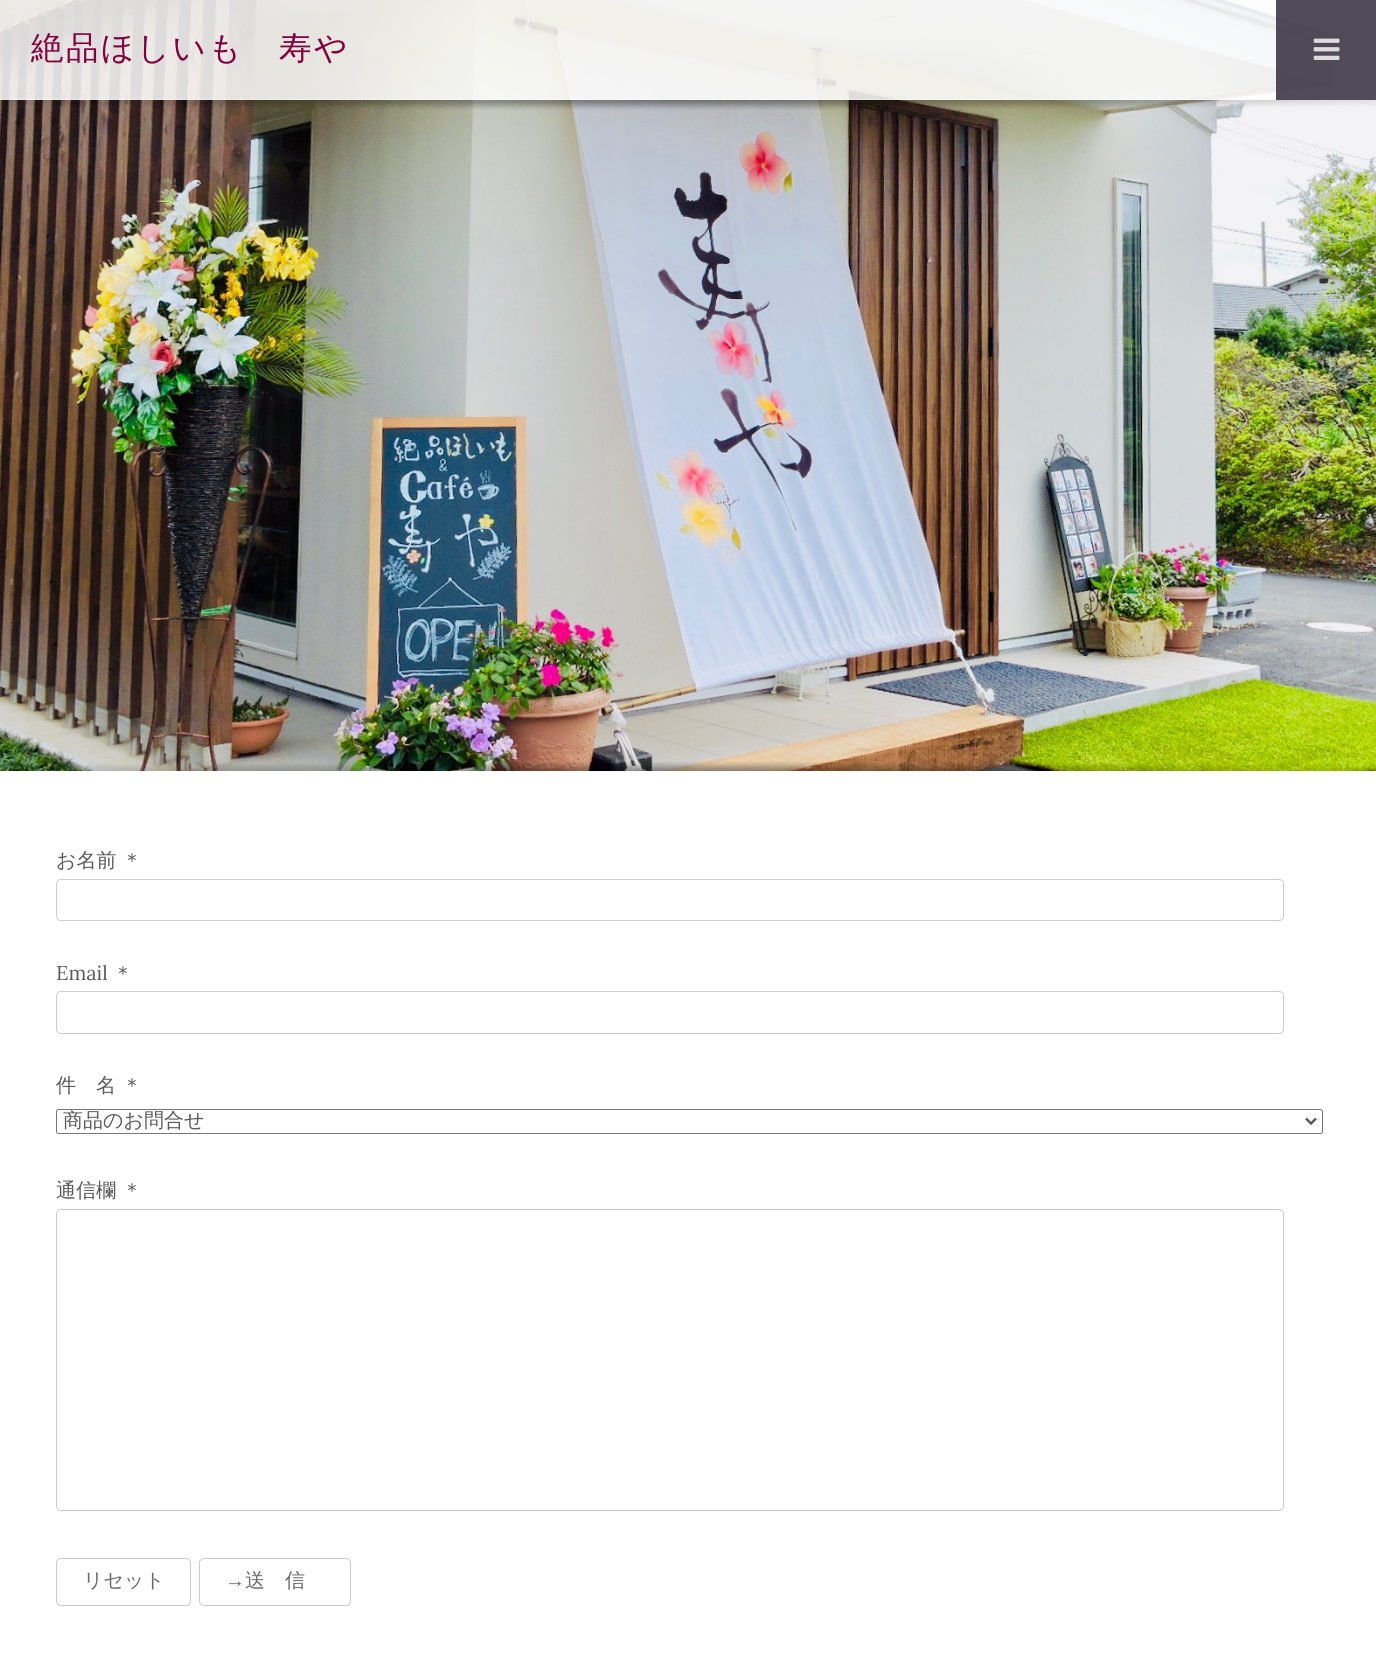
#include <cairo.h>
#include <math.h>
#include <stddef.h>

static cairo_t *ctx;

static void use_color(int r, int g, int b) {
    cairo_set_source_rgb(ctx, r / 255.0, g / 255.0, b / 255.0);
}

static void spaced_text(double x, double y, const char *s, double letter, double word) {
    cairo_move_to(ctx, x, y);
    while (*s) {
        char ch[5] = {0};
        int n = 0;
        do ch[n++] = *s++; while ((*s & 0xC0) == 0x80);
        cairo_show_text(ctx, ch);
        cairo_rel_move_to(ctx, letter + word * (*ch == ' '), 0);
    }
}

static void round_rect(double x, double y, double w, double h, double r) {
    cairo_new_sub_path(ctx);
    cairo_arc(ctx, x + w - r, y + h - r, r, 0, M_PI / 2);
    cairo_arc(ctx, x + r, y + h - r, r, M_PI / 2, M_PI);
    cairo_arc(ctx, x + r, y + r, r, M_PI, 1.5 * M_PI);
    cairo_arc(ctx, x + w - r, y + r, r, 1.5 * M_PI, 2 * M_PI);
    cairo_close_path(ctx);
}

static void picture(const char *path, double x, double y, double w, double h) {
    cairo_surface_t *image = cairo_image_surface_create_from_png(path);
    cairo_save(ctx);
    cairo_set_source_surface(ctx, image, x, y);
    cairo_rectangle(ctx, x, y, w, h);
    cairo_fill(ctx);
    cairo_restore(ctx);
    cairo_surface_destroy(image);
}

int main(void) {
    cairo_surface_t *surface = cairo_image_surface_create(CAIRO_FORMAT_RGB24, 1376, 1654);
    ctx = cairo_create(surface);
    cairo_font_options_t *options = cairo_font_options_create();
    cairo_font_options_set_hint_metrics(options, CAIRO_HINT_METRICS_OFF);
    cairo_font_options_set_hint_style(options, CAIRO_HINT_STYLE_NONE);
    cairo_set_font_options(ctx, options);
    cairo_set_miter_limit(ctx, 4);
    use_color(255, 255, 255);
    cairo_paint(ctx);
    picture("img1.png", 0, 0, 1376, 771);
    picture("img2.png", 0, 762, 1376, 10);
    cairo_set_source_rgba(ctx, 1, 1, 1, 0.85);
    cairo_rectangle(ctx, 0, 0, 1376, 100);
    cairo_fill(ctx);
    cairo_set_source_rgba(ctx, 1, 1, 1, 0.35);
    cairo_rectangle(ctx, 0, 99, 1223, 1);
    cairo_fill(ctx);
    cairo_select_font_face(ctx, "WenQuanYi Zen Hei Medium", CAIRO_FONT_SLANT_NORMAL, CAIRO_FONT_WEIGHT_NORMAL);
    cairo_set_font_size(ctx, 32.5);
    use_color(128, 0, 63);
    spaced_text(31, 59, "絶品ほしいも　寿や", 2.5, 0);
    cairo_set_source_rgba(ctx, 0.239, 0.216, 0.282, 0.9);
    cairo_rectangle(ctx, 1276, 0, 100, 100);
    cairo_fill(ctx);
    picture("img3.png", 1313, 38, 27, 22);
    picture("img4.png", 0, 100, 1376, 10);
    cairo_set_font_size(ctx, 20);
    use_color(90, 90, 90);
    cairo_move_to(ctx, 56, 867);
    cairo_show_text(ctx, "お名前");
    cairo_move_to(ctx, 122, 867);
    cairo_show_text(ctx, "＊");
    round_rect(56.5, 879.5, 1227, 41, 4.5);
    use_color(204, 204, 204);
    cairo_set_line_width(ctx, 1);
    cairo_stroke(ctx);
    cairo_select_font_face(ctx, "Lora", CAIRO_FONT_SLANT_NORMAL, CAIRO_FONT_WEIGHT_NORMAL);
    use_color(90, 90, 90);
    cairo_move_to(ctx, 56, 980);
    cairo_show_text(ctx, "Email");
    cairo_select_font_face(ctx, "WenQuanYi Zen Hei Medium", CAIRO_FONT_SLANT_NORMAL, CAIRO_FONT_WEIGHT_NORMAL);
    cairo_move_to(ctx, 113, 980);
    cairo_show_text(ctx, "＊");
    round_rect(56.5, 991.5, 1227, 42, 4.5);
    use_color(204, 204, 204);
    cairo_stroke(ctx);
    use_color(90, 90, 90);
    cairo_move_to(ctx, 56, 1092);
    cairo_show_text(ctx, "件　名");
    cairo_move_to(ctx, 122, 1092);
    cairo_show_text(ctx, "＊");
    round_rect(56.5, 1109.5, 1266, 24, 2);
    use_color(118, 118, 118);
    cairo_stroke(ctx);
    cairo_new_path(ctx);
    cairo_move_to(ctx, 1306, 1118.5);
    cairo_line_to(ctx, 1311, 1123.5);
    cairo_line_to(ctx, 1316, 1118.5);
    use_color(90, 90, 90);
    cairo_set_line_width(ctx, 2.5);
    cairo_stroke(ctx);
    cairo_move_to(ctx, 63, 1127);
    cairo_show_text(ctx, "商品のお問合せ");
    cairo_move_to(ctx, 56, 1197);
    cairo_show_text(ctx, "通信欄");
    cairo_move_to(ctx, 122, 1197);
    cairo_show_text(ctx, "＊");
    round_rect(56.5, 1209.5, 1227, 301, 4.5);
    use_color(204, 204, 204);
    cairo_set_line_width(ctx, 1);
    cairo_stroke(ctx);
    round_rect(56.5, 1558.5, 134, 47, 4.5);
    cairo_stroke(ctx);
    use_color(106, 106, 106);
    cairo_move_to(ctx, 83, 1587);
    cairo_show_text(ctx, "リセット");
    round_rect(199.5, 1558.5, 151, 47, 4.5);
    use_color(204, 204, 204);
    cairo_stroke(ctx);
    cairo_select_font_face(ctx, "Liberation Serif", CAIRO_FONT_SLANT_NORMAL, CAIRO_FONT_WEIGHT_NORMAL);
    use_color(106, 106, 106);
    cairo_move_to(ctx, 225, 1587);
    cairo_show_text(ctx, "→");
    cairo_select_font_face(ctx, "WenQuanYi Zen Hei Medium", CAIRO_FONT_SLANT_NORMAL, CAIRO_FONT_WEIGHT_NORMAL);
    cairo_move_to(ctx, 245, 1587);
    cairo_show_text(ctx, "送　信");
    cairo_surface_write_to_png(surface, "result.png");
    cairo_font_options_destroy(options);
    cairo_destroy(ctx);
    cairo_surface_destroy(surface);
    return 0;
}
